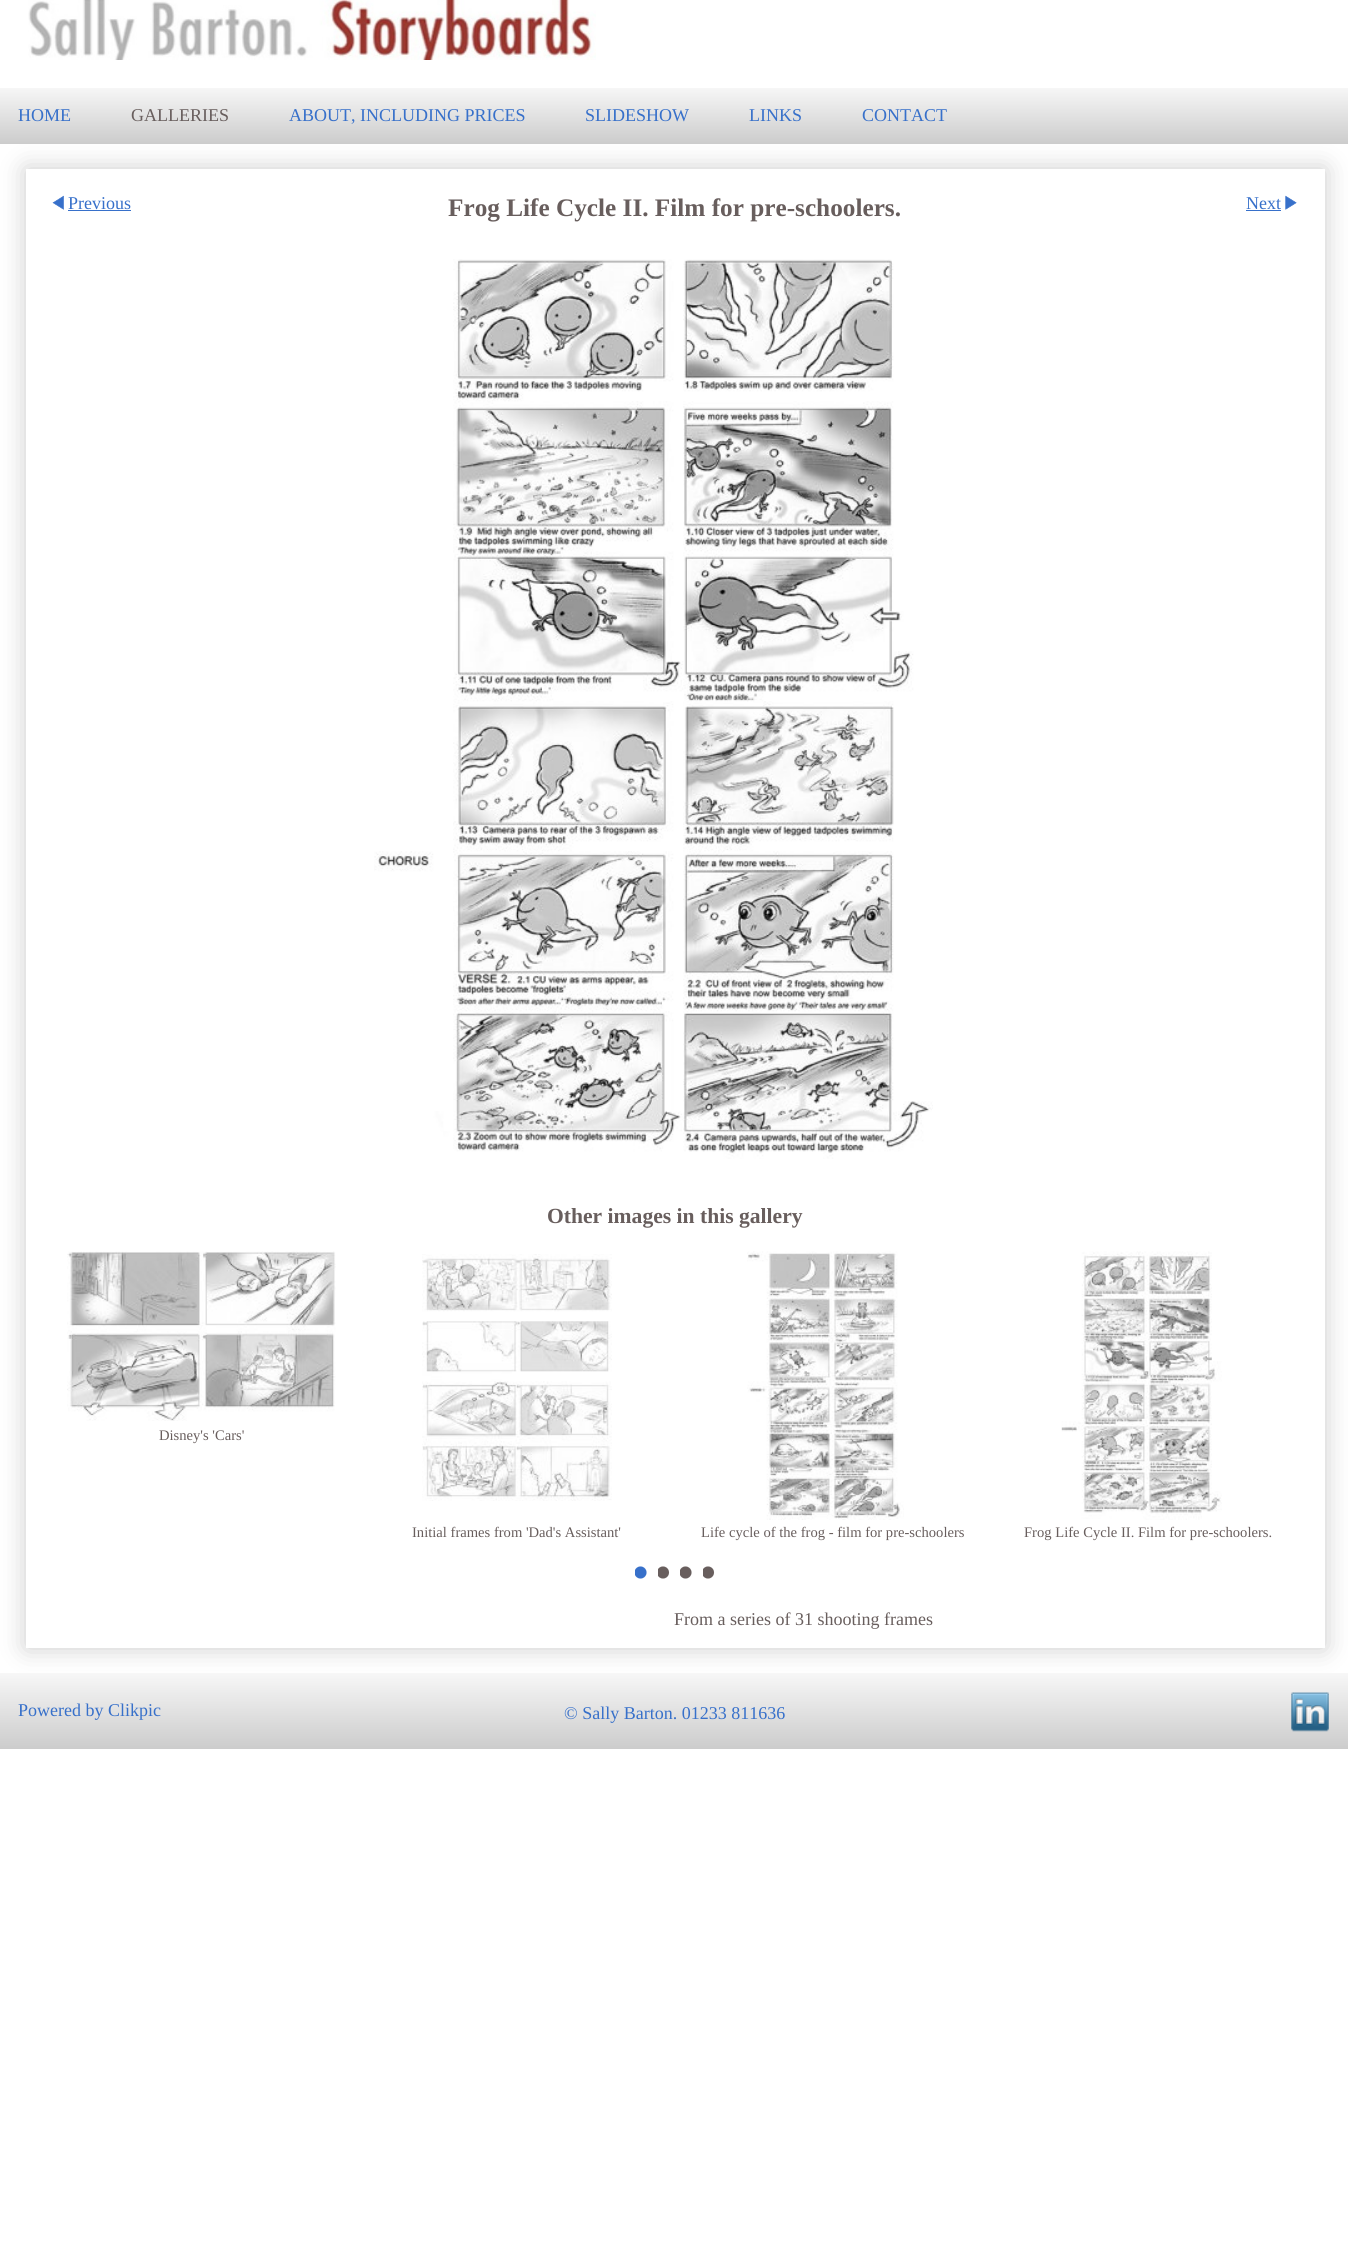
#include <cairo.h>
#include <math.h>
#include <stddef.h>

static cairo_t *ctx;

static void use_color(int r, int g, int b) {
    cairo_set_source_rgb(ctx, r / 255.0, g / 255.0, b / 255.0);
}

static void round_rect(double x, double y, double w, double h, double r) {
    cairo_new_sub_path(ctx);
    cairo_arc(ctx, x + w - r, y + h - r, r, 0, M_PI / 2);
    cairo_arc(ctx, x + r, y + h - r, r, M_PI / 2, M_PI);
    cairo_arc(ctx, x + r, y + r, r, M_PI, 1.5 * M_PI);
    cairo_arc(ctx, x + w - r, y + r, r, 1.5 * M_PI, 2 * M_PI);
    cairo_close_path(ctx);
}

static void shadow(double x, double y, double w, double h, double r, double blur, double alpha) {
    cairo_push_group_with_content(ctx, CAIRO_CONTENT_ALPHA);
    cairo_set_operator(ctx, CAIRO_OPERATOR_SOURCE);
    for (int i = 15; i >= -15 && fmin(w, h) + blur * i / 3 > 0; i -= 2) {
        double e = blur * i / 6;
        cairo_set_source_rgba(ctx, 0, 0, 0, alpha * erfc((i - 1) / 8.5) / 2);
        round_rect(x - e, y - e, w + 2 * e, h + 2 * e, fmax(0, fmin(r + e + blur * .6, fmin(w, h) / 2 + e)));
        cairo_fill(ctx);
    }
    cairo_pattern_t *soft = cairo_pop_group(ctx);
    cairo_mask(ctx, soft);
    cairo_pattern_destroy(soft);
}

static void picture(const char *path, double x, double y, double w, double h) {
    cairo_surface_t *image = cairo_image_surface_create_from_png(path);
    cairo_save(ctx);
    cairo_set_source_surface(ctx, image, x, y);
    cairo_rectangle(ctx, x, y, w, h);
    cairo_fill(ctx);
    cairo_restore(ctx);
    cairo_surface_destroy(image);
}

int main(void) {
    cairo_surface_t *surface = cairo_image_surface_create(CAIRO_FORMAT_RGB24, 1348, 2251);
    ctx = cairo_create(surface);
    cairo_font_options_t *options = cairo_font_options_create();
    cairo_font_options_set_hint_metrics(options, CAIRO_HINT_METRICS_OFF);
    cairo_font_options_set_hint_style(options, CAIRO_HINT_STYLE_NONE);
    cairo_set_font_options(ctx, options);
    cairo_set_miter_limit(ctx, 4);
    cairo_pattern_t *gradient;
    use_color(255, 255, 255);
    cairo_paint(ctx);
    picture("img1.png", 28, 0, 568, 60);
    gradient = cairo_pattern_create_linear(674, 87, 674, 144);
    cairo_pattern_add_color_stop_rgba(gradient, 0, 0.969, 0.969, 0.969, 1);
    cairo_pattern_add_color_stop_rgba(gradient, 1, 0.8, 0.8, 0.8, 1);
    cairo_set_source(ctx, gradient);
    cairo_pattern_destroy(gradient);
    cairo_rectangle(ctx, 0, 88, 1348, 56);
    cairo_fill(ctx);
    cairo_select_font_face(ctx, "Liberation Serif", CAIRO_FONT_SLANT_NORMAL, CAIRO_FONT_WEIGHT_NORMAL);
    cairo_set_font_size(ctx, 18);
    use_color(55, 112, 202);
    cairo_move_to(ctx, 18, 121);
    cairo_show_text(ctx, "HOME");
    use_color(104, 94, 93);
    cairo_move_to(ctx, 131, 121);
    cairo_show_text(ctx, "GALLERIES");
    use_color(55, 112, 202);
    cairo_move_to(ctx, 289, 121);
    cairo_show_text(ctx, "ABOUT, INCLUDING PRICES");
    cairo_move_to(ctx, 585, 121);
    cairo_show_text(ctx, "SLIDESHOW");
    cairo_move_to(ctx, 749, 121);
    cairo_show_text(ctx, "LINKS");
    cairo_move_to(ctx, 862, 121);
    cairo_show_text(ctx, "CONTACT");
    cairo_save(ctx);
    cairo_set_fill_rule(ctx, CAIRO_FILL_RULE_EVEN_ODD);
    cairo_new_path(ctx);
    cairo_move_to(ctx, 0, 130);
    cairo_line_to(ctx, 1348, 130);
    cairo_line_to(ctx, 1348, 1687);
    cairo_line_to(ctx, 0, 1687);
    cairo_close_path(ctx);
    cairo_move_to(ctx, 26, 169);
    cairo_line_to(ctx, 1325, 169);
    cairo_line_to(ctx, 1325, 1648);
    cairo_line_to(ctx, 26, 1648);
    cairo_close_path(ctx);
    cairo_clip(ctx);
    use_color(204, 204, 204);
    shadow(26, 169, 1299, 1479, 0, 12.5, 1);
    cairo_restore(ctx);
    picture("img2.png", 52, 195, 12, 15);
    cairo_move_to(ctx, 68, 209);
    cairo_show_text(ctx, "Previous");
    cairo_rectangle(ctx, 68, 210, 63, 1);
    cairo_fill(ctx);
    cairo_move_to(ctx, 1246, 209);
    cairo_show_text(ctx, "Next");
    cairo_rectangle(ctx, 1246, 210, 35, 1);
    cairo_fill(ctx);
    picture("img3.png", 1285, 195, 12, 15);
    cairo_select_font_face(ctx, "Liberation Serif", CAIRO_FONT_SLANT_NORMAL, CAIRO_FONT_WEIGHT_BOLD);
    cairo_set_font_size(ctx, 25.25);
    use_color(104, 94, 93);
    cairo_move_to(ctx, 448, 216);
    cairo_show_text(ctx, "Frog Life Cycle II. Film for pre-schoolers.");
    picture("img4.png", 374, 259, 559, 900);
    cairo_set_font_size(ctx, 21.6);
    cairo_move_to(ctx, 547, 1223);
    cairo_show_text(ctx, "Other images in this gallery");
    picture("img5.png", 67, 1251, 269, 170);
    cairo_select_font_face(ctx, "Liberation Serif", CAIRO_FONT_SLANT_NORMAL, CAIRO_FONT_WEIGHT_NORMAL);
    cairo_set_font_size(ctx, 14.6);
    cairo_move_to(ctx, 159, 1440);
    cairo_show_text(ctx, "Disney's 'Cars'");
    picture("img6.png", 422, 1254, 190, 247);
    cairo_move_to(ctx, 412, 1537);
    cairo_show_text(ctx, "Initial frames from 'Dad's Assistant'");
    picture("img7.png", 747, 1251, 157, 269);
    cairo_move_to(ctx, 701, 1537);
    cairo_show_text(ctx, "Life cycle of the frog - film for pre-schoolers");
    picture("img8.png", 1061, 1251, 161, 269);
    cairo_move_to(ctx, 1024, 1537);
    cairo_show_text(ctx, "Frog Life Cycle II. Film for pre-schoolers.");
    cairo_save(ctx);
    cairo_rectangle(ctx, 635, 1566, 13, 13);
    cairo_clip(ctx);
    use_color(55, 112, 202);
    cairo_arc(ctx, 640.5, 1572.5, 6, 0, 2 * M_PI);
    cairo_fill_preserve(ctx);
    cairo_set_line_width(ctx, 0.1);
    cairo_stroke(ctx);
    cairo_restore(ctx);
    cairo_save(ctx);
    cairo_rectangle(ctx, 658, 1566, 12, 13);
    cairo_clip(ctx);
    cairo_arc(ctx, 663, 1572.5, 6, 0, 2 * M_PI);
    cairo_fill_preserve(ctx);
    cairo_set_line_width(ctx, 0.1);
    cairo_stroke(ctx);
    cairo_restore(ctx);
    cairo_save(ctx);
    cairo_rectangle(ctx, 680, 1566, 13, 13);
    cairo_clip(ctx);
    cairo_arc(ctx, 685.5, 1572.5, 6, 0, 2 * M_PI);
    cairo_fill_preserve(ctx);
    cairo_set_line_width(ctx, 0.1);
    cairo_stroke(ctx);
    cairo_restore(ctx);
    cairo_save(ctx);
    cairo_rectangle(ctx, 703, 1566, 12, 13);
    cairo_clip(ctx);
    cairo_arc(ctx, 708, 1572.5, 6, 0, 2 * M_PI);
    cairo_fill_preserve(ctx);
    cairo_set_line_width(ctx, 0.1);
    cairo_stroke(ctx);
    cairo_restore(ctx);
    cairo_set_font_size(ctx, 18);
    cairo_move_to(ctx, 674, 1625);
    cairo_show_text(ctx, "From a series of 31 shooting frames");
    gradient = cairo_pattern_create_linear(674, 1673, 674, 1749);
    cairo_pattern_add_color_stop_rgba(gradient, 0, 0.969, 0.969, 0.969, 1);
    cairo_pattern_add_color_stop_rgba(gradient, 1, 0.8, 0.8, 0.8, 1);
    cairo_set_source(ctx, gradient);
    cairo_pattern_destroy(gradient);
    cairo_rectangle(ctx, 0, 1673, 1348, 76);
    cairo_fill(ctx);
    use_color(55, 112, 202);
    cairo_move_to(ctx, 18, 1716);
    cairo_show_text(ctx, "Powered by Clikpic");
    cairo_move_to(ctx, 564, 1719);
    cairo_show_text(ctx, "© Sally Barton. 01233 811636");
    picture("img9.png", 1291, 1692, 38, 40);
    cairo_surface_write_to_png(surface, "result.png");
    cairo_font_options_destroy(options);
    cairo_destroy(ctx);
    cairo_surface_destroy(surface);
    return 0;
}
